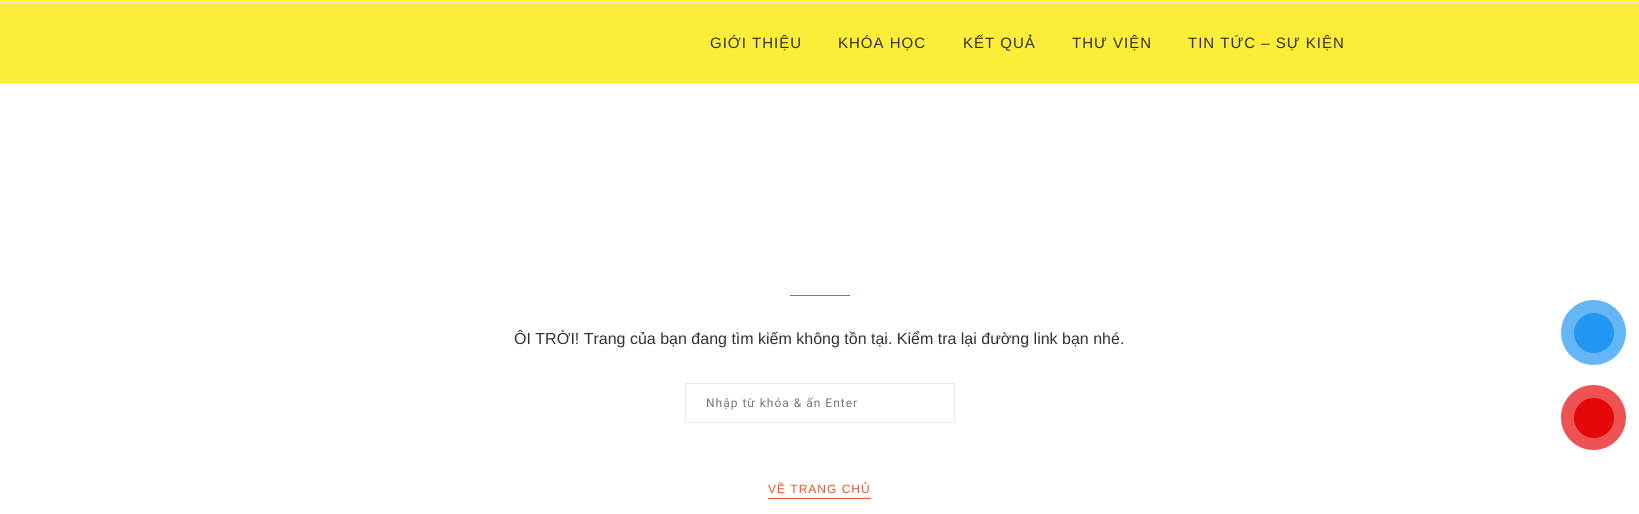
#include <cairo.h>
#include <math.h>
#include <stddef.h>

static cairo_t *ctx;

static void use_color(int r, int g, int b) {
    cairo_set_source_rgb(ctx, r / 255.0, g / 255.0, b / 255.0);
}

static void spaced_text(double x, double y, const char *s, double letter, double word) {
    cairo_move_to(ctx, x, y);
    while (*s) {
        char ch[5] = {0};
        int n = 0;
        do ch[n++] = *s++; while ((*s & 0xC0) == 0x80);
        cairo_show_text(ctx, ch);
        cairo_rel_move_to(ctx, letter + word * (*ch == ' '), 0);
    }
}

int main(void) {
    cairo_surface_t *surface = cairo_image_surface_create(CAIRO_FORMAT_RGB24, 1639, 514);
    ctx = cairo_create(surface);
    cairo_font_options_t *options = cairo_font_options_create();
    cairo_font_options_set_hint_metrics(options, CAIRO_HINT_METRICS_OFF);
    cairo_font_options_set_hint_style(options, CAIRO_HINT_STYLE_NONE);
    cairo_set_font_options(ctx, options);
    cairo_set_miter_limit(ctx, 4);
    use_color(255, 255, 255);
    cairo_paint(ctx);
    use_color(255, 255, 0);
    cairo_rectangle(ctx, 0, 0, 1639, 2);
    cairo_fill(ctx);
    use_color(252, 238, 56);
    cairo_rectangle(ctx, 0, 3, 1639, 80);
    cairo_fill(ctx);
    use_color(236, 236, 236);
    cairo_rectangle(ctx, 0, 2, 1639, 1);
    cairo_fill(ctx);
    cairo_rectangle(ctx, 0, 83, 1639, 1);
    cairo_fill(ctx);
    cairo_select_font_face(ctx, "Liberation Sans", CAIRO_FONT_SLANT_NORMAL, CAIRO_FONT_WEIGHT_NORMAL);
    cairo_set_font_size(ctx, 15);
    use_color(49, 49, 49);
    spaced_text(710, 48, "GIỚI THIỆU", 1, 0);
    spaced_text(838, 48, "KHÓA HỌC", 1, 0);
    spaced_text(963, 48, "KẾT QUẢ", 1, 0);
    spaced_text(1072, 48, "THƯ VIỆN", 1, 0);
    spaced_text(1188, 48, "TIN TỨC – SỰ KIỆN", 1, 0);
    use_color(227, 86, 40);
    cairo_rectangle(ctx, 790, 295, 60, 1);
    cairo_fill(ctx);
    cairo_set_font_size(ctx, 16);
    use_color(49, 49, 49);
    cairo_move_to(ctx, 514, 344);
    cairo_show_text(ctx, "ÔI TRỜI! Trang của bạn đang tìm kiếm không tồn tại. Kiểm tra lại đường link bạn nhé.");
    cairo_rectangle(ctx, 685.5, 383.5, 269, 39);
    use_color(233, 233, 233);
    cairo_set_line_width(ctx, 1);
    cairo_stroke(ctx);
    cairo_select_font_face(ctx, "Roboto", CAIRO_FONT_SLANT_NORMAL, CAIRO_FONT_WEIGHT_NORMAL);
    cairo_set_font_size(ctx, 12);
    use_color(117, 117, 117);
    spaced_text(706, 407, "Nhập từ khóa & ấn Enter", 1, 0);
    cairo_select_font_face(ctx, "Liberation Sans", CAIRO_FONT_SLANT_NORMAL, CAIRO_FONT_WEIGHT_NORMAL);
    use_color(227, 86, 40);
    spaced_text(768, 493, "VỀ TRANG CHỦ", 1, 0);
    cairo_rectangle(ctx, 768, 498, 103, 1);
    cairo_fill(ctx);
    use_color(100, 182, 247);
    cairo_arc(ctx, 1593.5, 332.5, 32.5, 0, 2 * M_PI);
    cairo_fill(ctx);
    use_color(33, 150, 243);
    cairo_arc(ctx, 1594, 333, 20, 0, 2 * M_PI);
    cairo_fill(ctx);
    use_color(238, 82, 82);
    cairo_arc(ctx, 1593.5, 417.5, 32.5, 0, 2 * M_PI);
    cairo_fill(ctx);
    use_color(230, 8, 8);
    cairo_arc(ctx, 1594, 418, 20, 0, 2 * M_PI);
    cairo_fill(ctx);
    cairo_surface_write_to_png(surface, "result.png");
    cairo_font_options_destroy(options);
    cairo_destroy(ctx);
    cairo_surface_destroy(surface);
    return 0;
}
